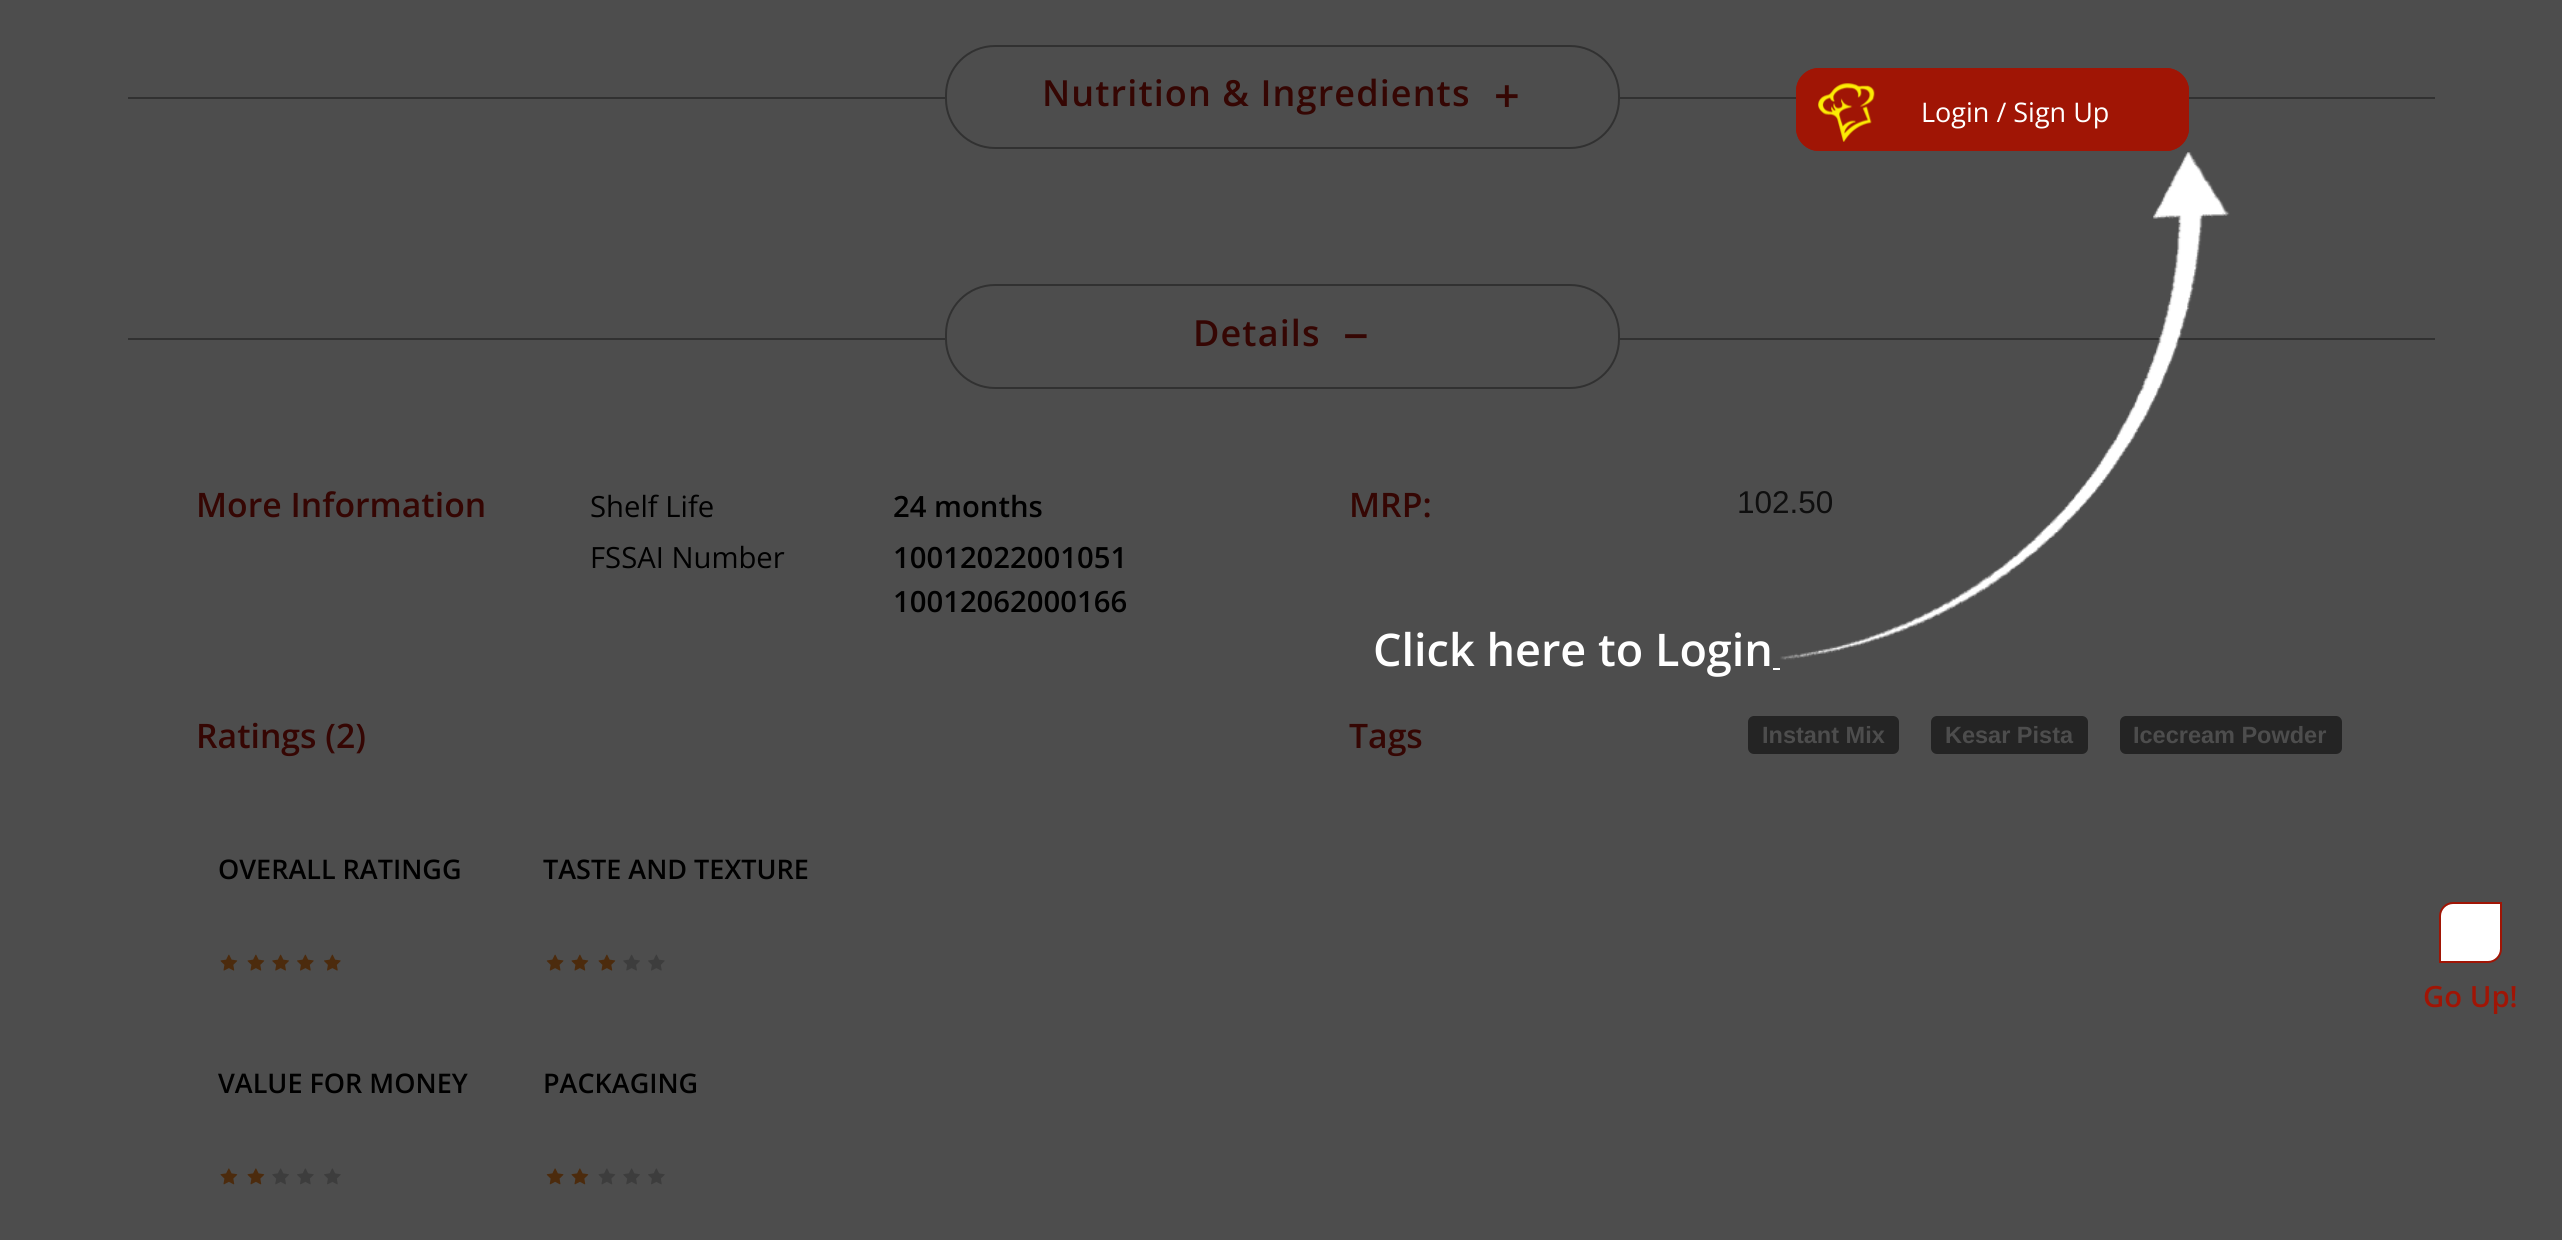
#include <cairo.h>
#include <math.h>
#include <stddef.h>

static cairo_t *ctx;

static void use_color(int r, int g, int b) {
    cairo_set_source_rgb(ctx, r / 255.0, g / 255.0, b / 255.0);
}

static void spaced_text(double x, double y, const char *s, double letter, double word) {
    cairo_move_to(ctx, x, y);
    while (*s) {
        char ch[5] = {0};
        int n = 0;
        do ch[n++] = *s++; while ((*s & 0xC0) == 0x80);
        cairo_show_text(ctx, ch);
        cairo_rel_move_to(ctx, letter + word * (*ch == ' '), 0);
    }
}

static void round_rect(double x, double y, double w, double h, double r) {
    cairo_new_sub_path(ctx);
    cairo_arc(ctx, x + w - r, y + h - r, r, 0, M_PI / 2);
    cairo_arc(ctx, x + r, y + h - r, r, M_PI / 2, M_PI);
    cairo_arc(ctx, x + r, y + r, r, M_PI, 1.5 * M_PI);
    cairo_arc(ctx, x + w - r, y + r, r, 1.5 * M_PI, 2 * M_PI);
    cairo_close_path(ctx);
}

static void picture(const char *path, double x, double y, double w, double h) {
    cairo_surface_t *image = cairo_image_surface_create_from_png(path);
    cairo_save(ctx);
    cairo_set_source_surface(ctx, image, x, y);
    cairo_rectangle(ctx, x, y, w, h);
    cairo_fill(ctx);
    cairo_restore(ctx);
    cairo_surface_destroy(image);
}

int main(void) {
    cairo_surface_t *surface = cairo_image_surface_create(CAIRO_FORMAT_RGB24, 2562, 1240);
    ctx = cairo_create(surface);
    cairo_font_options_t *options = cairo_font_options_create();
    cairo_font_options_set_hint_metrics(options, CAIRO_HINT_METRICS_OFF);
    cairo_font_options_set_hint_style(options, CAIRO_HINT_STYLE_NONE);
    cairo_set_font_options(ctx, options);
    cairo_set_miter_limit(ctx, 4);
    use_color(77, 77, 77);
    cairo_paint(ctx);
    use_color(49, 49, 49);
    cairo_rectangle(ctx, 128, 97, 2307, 2);
    cairo_fill(ctx);
    use_color(77, 77, 77);
    round_rect(946, 46, 673, 102, 49);
    cairo_fill_preserve(ctx);
    use_color(49, 49, 49);
    cairo_stroke(ctx);
    cairo_select_font_face(ctx, "Open Sans SemiBold", CAIRO_FONT_SLANT_NORMAL, CAIRO_FONT_WEIGHT_NORMAL);
    cairo_set_font_size(ctx, 36);
    use_color(53, 6, 3);
    spaced_text(1042, 106, "Nutrition & Ingredients", 1.1, 0);
    cairo_set_font_size(ctx, 45);
    spaced_text(1494, 112, "+", 1.1, 0);
    use_color(49, 49, 49);
    cairo_rectangle(ctx, 128, 338, 2307, 2);
    cairo_fill(ctx);
    use_color(77, 77, 77);
    round_rect(946, 285, 673, 103, 49);
    cairo_fill_preserve(ctx);
    use_color(49, 49, 49);
    cairo_stroke(ctx);
    cairo_set_font_size(ctx, 36);
    use_color(53, 6, 3);
    spaced_text(1193, 346, "Details", 1.1, 0);
    cairo_set_font_size(ctx, 45);
    spaced_text(1343, 352, "−", 1.1, 0);
    cairo_set_font_size(ctx, 33.75);
    cairo_move_to(ctx, 196, 517);
    cairo_show_text(ctx, "More Information");
    cairo_select_font_face(ctx, "Open Sans", CAIRO_FONT_SLANT_NORMAL, CAIRO_FONT_WEIGHT_NORMAL);
    cairo_set_font_size(ctx, 29.25);
    use_color(0, 0, 0);
    cairo_move_to(ctx, 590, 517);
    cairo_show_text(ctx, "Shelf Life");
    cairo_select_font_face(ctx, "Open Sans SemiBold", CAIRO_FONT_SLANT_NORMAL, CAIRO_FONT_WEIGHT_NORMAL);
    cairo_move_to(ctx, 893, 517);
    cairo_show_text(ctx, "24 months");
    cairo_select_font_face(ctx, "Open Sans", CAIRO_FONT_SLANT_NORMAL, CAIRO_FONT_WEIGHT_NORMAL);
    cairo_move_to(ctx, 590, 568);
    cairo_show_text(ctx, "FSSAI Number");
    cairo_select_font_face(ctx, "Open Sans SemiBold", CAIRO_FONT_SLANT_NORMAL, CAIRO_FONT_WEIGHT_NORMAL);
    cairo_move_to(ctx, 893, 568);
    cairo_show_text(ctx, "10012022001051");
    cairo_move_to(ctx, 893, 612);
    cairo_show_text(ctx, "10012062000166");
    cairo_set_font_size(ctx, 33.75);
    use_color(53, 6, 3);
    cairo_move_to(ctx, 1349, 517);
    cairo_show_text(ctx, "MRP:");
    cairo_select_font_face(ctx, "Liberation Sans", CAIRO_FONT_SLANT_NORMAL, CAIRO_FONT_WEIGHT_NORMAL);
    cairo_set_font_size(ctx, 31.5);
    use_color(15, 15, 15);
    cairo_move_to(ctx, 1737, 513);
    cairo_show_text(ctx, "102.50");
    cairo_select_font_face(ctx, "Open Sans SemiBold", CAIRO_FONT_SLANT_NORMAL, CAIRO_FONT_WEIGHT_NORMAL);
    cairo_set_font_size(ctx, 33.75);
    use_color(53, 6, 3);
    cairo_move_to(ctx, 196, 748);
    cairo_show_text(ctx, "Ratings (2)");
    cairo_set_font_size(ctx, 27);
    use_color(0, 0, 0);
    cairo_move_to(ctx, 218, 879);
    cairo_show_text(ctx, "OVERALL RATINGG");
    picture("img1.png", 220, 954, 18, 17);
    picture("img1.png", 247, 954, 18, 17);
    picture("img2.png", 272, 954, 17, 17);
    picture("img3.png", 297, 954, 17, 17);
    picture("img3.png", 324, 954, 17, 17);
    cairo_move_to(ctx, 543, 879);
    cairo_show_text(ctx, "TASTE AND TEXTURE");
    picture("img4.png", 546, 954, 18, 17);
    picture("img1.png", 571, 954, 18, 17);
    picture("img1.png", 598, 954, 18, 17);
    picture("img5.png", 623, 954, 17, 17);
    picture("img6.png", 648, 954, 17, 17);
    cairo_move_to(ctx, 218, 1093);
    cairo_show_text(ctx, "VALUE FOR MONEY");
    picture("img7.png", 220, 1168, 18, 17);
    picture("img7.png", 247, 1168, 18, 17);
    picture("img8.png", 272, 1168, 17, 17);
    picture("img9.png", 297, 1168, 17, 17);
    picture("img9.png", 324, 1168, 17, 17);
    cairo_move_to(ctx, 543, 1093);
    cairo_show_text(ctx, "PACKAGING");
    picture("img10.png", 546, 1168, 18, 17);
    picture("img7.png", 571, 1168, 18, 17);
    picture("img11.png", 598, 1168, 18, 17);
    picture("img8.png", 623, 1168, 17, 17);
    picture("img9.png", 648, 1168, 17, 17);
    cairo_set_font_size(ctx, 33.75);
    use_color(53, 6, 3);
    cairo_move_to(ctx, 1349, 748);
    cairo_show_text(ctx, "Tags");
    use_color(36, 36, 36);
    round_rect(1748, 716, 151, 38, 6);
    cairo_fill(ctx);
    cairo_select_font_face(ctx, "Liberation Sans", CAIRO_FONT_SLANT_NORMAL, CAIRO_FONT_WEIGHT_BOLD);
    cairo_set_font_size(ctx, 23.5);
    use_color(77, 77, 77);
    cairo_move_to(ctx, 1762, 743);
    cairo_show_text(ctx, "Instant Mix");
    use_color(36, 36, 36);
    round_rect(1931, 716, 157, 38, 6);
    cairo_fill(ctx);
    use_color(77, 77, 77);
    cairo_move_to(ctx, 1945, 743);
    cairo_show_text(ctx, "Kesar Pista");
    use_color(36, 36, 36);
    round_rect(2120, 716, 222, 38, 6);
    cairo_fill(ctx);
    use_color(77, 77, 77);
    cairo_move_to(ctx, 2133, 743);
    cairo_show_text(ctx, "Icecream Powder");
    use_color(160, 21, 5);
    round_rect(1796, 68, 393, 83, 23);
    cairo_fill(ctx);
    picture("img12.png", 1818, 83, 57, 59);
    round_rect(1797, 69, 391, 81, 22);
    cairo_stroke(ctx);
    cairo_select_font_face(ctx, "Open Sans", CAIRO_FONT_SLANT_NORMAL, CAIRO_FONT_WEIGHT_NORMAL);
    cairo_set_font_size(ctx, 27);
    use_color(255, 255, 255);
    cairo_move_to(ctx, 1921, 122);
    cairo_show_text(ctx, "Login / Sign Up");
    cairo_select_font_face(ctx, "Open Sans SemiBold", CAIRO_FONT_SLANT_NORMAL, CAIRO_FONT_WEIGHT_NORMAL);
    cairo_set_font_size(ctx, 45);
    cairo_move_to(ctx, 1373, 666);
    cairo_show_text(ctx, "Click here to Login");
    cairo_rectangle(ctx, 1773, 668, 7, 2);
    cairo_fill(ctx);
    picture("img13.png", 1780, 152, 450, 508);
    cairo_new_path(ctx);
    cairo_move_to(ctx, 2453, 903);
    cairo_line_to(ctx, 2501, 903);
    cairo_line_to(ctx, 2501, 949);
    cairo_curve_to(ctx, 2501, 956, 2495, 962, 2488, 962);
    cairo_line_to(ctx, 2440, 962);
    cairo_line_to(ctx, 2440, 916);
    cairo_curve_to(ctx, 2440, 909, 2446, 903, 2453, 903);
    cairo_close_path(ctx);
    cairo_fill_preserve(ctx);
    use_color(160, 21, 5);
    cairo_stroke(ctx);
    cairo_set_font_size(ctx, 29.25);
    cairo_move_to(ctx, 2423, 1007);
    cairo_show_text(ctx, "Go Up!");
    cairo_surface_write_to_png(surface, "result.png");
    cairo_font_options_destroy(options);
    cairo_destroy(ctx);
    cairo_surface_destroy(surface);
    return 0;
}
